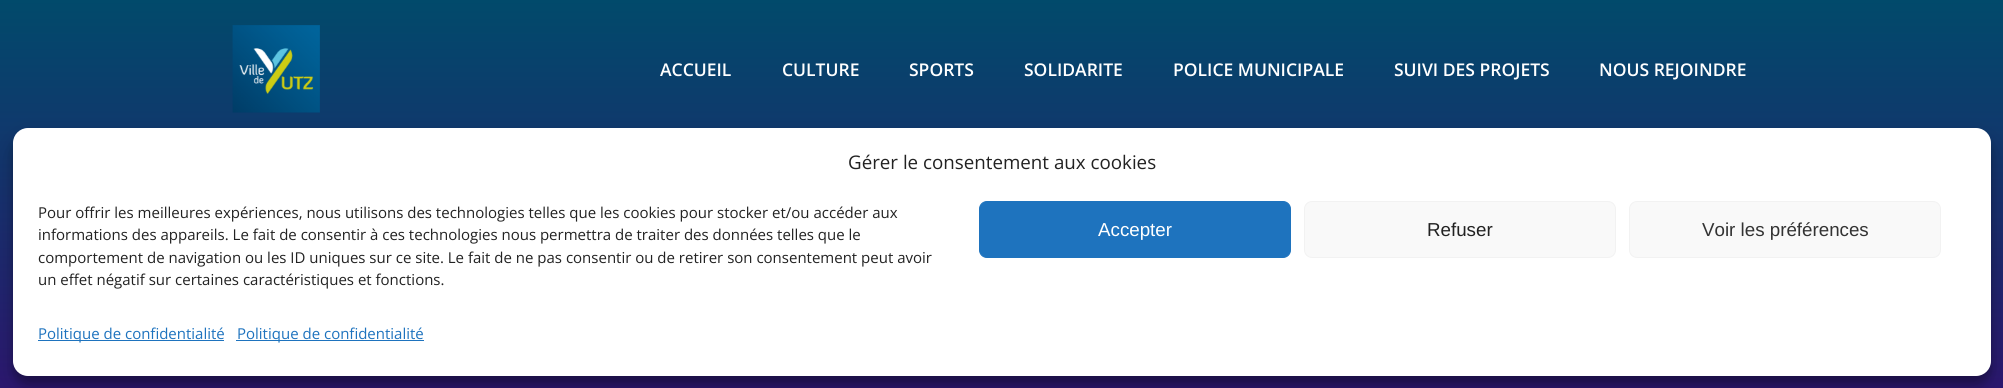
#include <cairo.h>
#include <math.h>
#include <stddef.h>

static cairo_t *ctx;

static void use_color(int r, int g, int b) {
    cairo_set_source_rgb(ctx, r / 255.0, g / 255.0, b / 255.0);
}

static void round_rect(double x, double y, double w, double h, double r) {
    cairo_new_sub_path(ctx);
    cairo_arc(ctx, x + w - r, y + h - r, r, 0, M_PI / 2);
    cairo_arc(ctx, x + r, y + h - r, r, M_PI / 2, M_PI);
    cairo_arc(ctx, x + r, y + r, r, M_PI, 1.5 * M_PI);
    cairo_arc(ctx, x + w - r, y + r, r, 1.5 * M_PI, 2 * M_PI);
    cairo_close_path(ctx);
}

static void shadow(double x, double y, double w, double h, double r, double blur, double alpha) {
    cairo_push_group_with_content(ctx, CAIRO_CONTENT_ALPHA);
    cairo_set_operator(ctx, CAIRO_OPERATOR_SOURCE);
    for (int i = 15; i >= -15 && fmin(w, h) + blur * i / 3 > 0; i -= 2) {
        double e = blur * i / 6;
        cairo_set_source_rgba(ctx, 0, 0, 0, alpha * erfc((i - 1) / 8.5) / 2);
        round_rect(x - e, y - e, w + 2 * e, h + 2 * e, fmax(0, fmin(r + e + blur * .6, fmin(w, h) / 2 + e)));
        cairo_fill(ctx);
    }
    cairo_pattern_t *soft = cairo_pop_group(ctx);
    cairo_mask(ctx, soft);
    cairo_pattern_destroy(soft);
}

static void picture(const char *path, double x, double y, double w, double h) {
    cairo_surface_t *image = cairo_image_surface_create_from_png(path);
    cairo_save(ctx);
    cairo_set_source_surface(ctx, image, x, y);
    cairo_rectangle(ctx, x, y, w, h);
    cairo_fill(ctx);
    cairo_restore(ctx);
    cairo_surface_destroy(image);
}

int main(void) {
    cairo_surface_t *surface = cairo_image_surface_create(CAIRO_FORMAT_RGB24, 2003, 388);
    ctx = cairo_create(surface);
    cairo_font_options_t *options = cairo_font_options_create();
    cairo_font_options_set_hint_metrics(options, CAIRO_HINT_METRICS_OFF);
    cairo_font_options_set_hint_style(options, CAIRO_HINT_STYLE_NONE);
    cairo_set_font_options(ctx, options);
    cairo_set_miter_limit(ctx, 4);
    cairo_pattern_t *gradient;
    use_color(255, 255, 255);
    cairo_paint(ctx);
    gradient = cairo_pattern_create_linear(1002, 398, 1002, 0);
    cairo_pattern_add_color_stop_rgba(gradient, 0, 0.176, 0.086, 0.439, 1);
    cairo_pattern_add_color_stop_rgba(gradient, 1, 0.004, 0.29, 0.42, 1);
    cairo_set_source(ctx, gradient);
    cairo_pattern_destroy(gradient);
    cairo_rectangle(ctx, 0, 0, 2003, 388);
    cairo_fill(ctx);
    picture("img1.png", 232, 25, 88, 88);
    cairo_select_font_face(ctx, "Open Sans SemiBold", CAIRO_FONT_SLANT_NORMAL, CAIRO_FONT_WEIGHT_NORMAL);
    cairo_set_font_size(ctx, 17.5);
    use_color(255, 255, 255);
    cairo_move_to(ctx, 660, 76);
    cairo_show_text(ctx, "ACCUEIL");
    cairo_move_to(ctx, 782, 76);
    cairo_show_text(ctx, "CULTURE");
    cairo_move_to(ctx, 909, 76);
    cairo_show_text(ctx, "SPORTS");
    cairo_move_to(ctx, 1024, 76);
    cairo_show_text(ctx, "SOLIDARITE");
    cairo_move_to(ctx, 1173, 76);
    cairo_show_text(ctx, "POLICE MUNICIPALE");
    cairo_move_to(ctx, 1394, 76);
    cairo_show_text(ctx, "SUIVI DES PROJETS");
    cairo_move_to(ctx, 1599, 76);
    cairo_show_text(ctx, "NOUS REJOINDRE");
    use_color(0, 0, 0);
    shadow(13, 135, 1978, 249, 15, 4, 0.23);
    shadow(13, 140, 1978, 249, 15, 12.5, 0.19);
    use_color(255, 255, 255);
    round_rect(13, 128, 1978, 248, 15);
    cairo_fill(ctx);
    cairo_select_font_face(ctx, "Open Sans", CAIRO_FONT_SLANT_NORMAL, CAIRO_FONT_WEIGHT_NORMAL);
    cairo_set_font_size(ctx, 18.75);
    use_color(34, 34, 34);
    cairo_move_to(ctx, 848, 169);
    cairo_show_text(ctx, "Gérer le consentement aux cookies");
    cairo_set_font_size(ctx, 15);
    cairo_move_to(ctx, 38, 218);
    cairo_show_text(ctx, "Pour offrir les meilleures expériences, nous utilisons des technologies telles que les cookies pour stocker et/ou accéder aux");
    cairo_move_to(ctx, 38, 240);
    cairo_show_text(ctx, "informations des appareils. Le fait de consentir à ces technologies nous permettra de traiter des données telles que le");
    cairo_move_to(ctx, 38, 263);
    cairo_show_text(ctx, "comportement de navigation ou les ID uniques sur ce site. Le fait de ne pas consentir ou de retirer son consentement peut avoir");
    cairo_move_to(ctx, 38, 285);
    cairo_show_text(ctx, "un effet négatif sur certaines caractéristiques et fonctions.");
    use_color(30, 115, 190);
    round_rect(979.5, 201.5, 311, 56, 7.5);
    cairo_fill_preserve(ctx);
    cairo_set_line_width(ctx, 1);
    cairo_stroke(ctx);
    cairo_select_font_face(ctx, "Liberation Sans", CAIRO_FONT_SLANT_NORMAL, CAIRO_FONT_WEIGHT_NORMAL);
    cairo_set_font_size(ctx, 18.75);
    use_color(255, 255, 255);
    cairo_move_to(ctx, 1098, 236);
    cairo_show_text(ctx, "Accepter");
    use_color(249, 249, 249);
    round_rect(1304.5, 201.5, 311, 56, 7.5);
    cairo_fill_preserve(ctx);
    use_color(242, 242, 242);
    cairo_stroke(ctx);
    use_color(34, 34, 34);
    cairo_move_to(ctx, 1427, 236);
    cairo_show_text(ctx, "Refuser");
    use_color(249, 249, 249);
    round_rect(1629.5, 201.5, 311, 56, 7.5);
    cairo_fill_preserve(ctx);
    use_color(242, 242, 242);
    cairo_stroke(ctx);
    use_color(51, 51, 51);
    cairo_move_to(ctx, 1702, 236);
    cairo_show_text(ctx, "Voir les préférences");
    use_color(30, 115, 190);
    cairo_rectangle(ctx, 38, 340, 186, 1);
    cairo_fill(ctx);
    cairo_select_font_face(ctx, "Open Sans", CAIRO_FONT_SLANT_NORMAL, CAIRO_FONT_WEIGHT_NORMAL);
    cairo_set_font_size(ctx, 15);
    cairo_move_to(ctx, 38, 339);
    cairo_show_text(ctx, "Politique de confidentialité");
    cairo_rectangle(ctx, 236, 340, 188, 1);
    cairo_fill(ctx);
    cairo_move_to(ctx, 237, 339);
    cairo_show_text(ctx, "Politique de confidentialité");
    cairo_surface_write_to_png(surface, "result.png");
    cairo_font_options_destroy(options);
    cairo_destroy(ctx);
    cairo_surface_destroy(surface);
    return 0;
}
